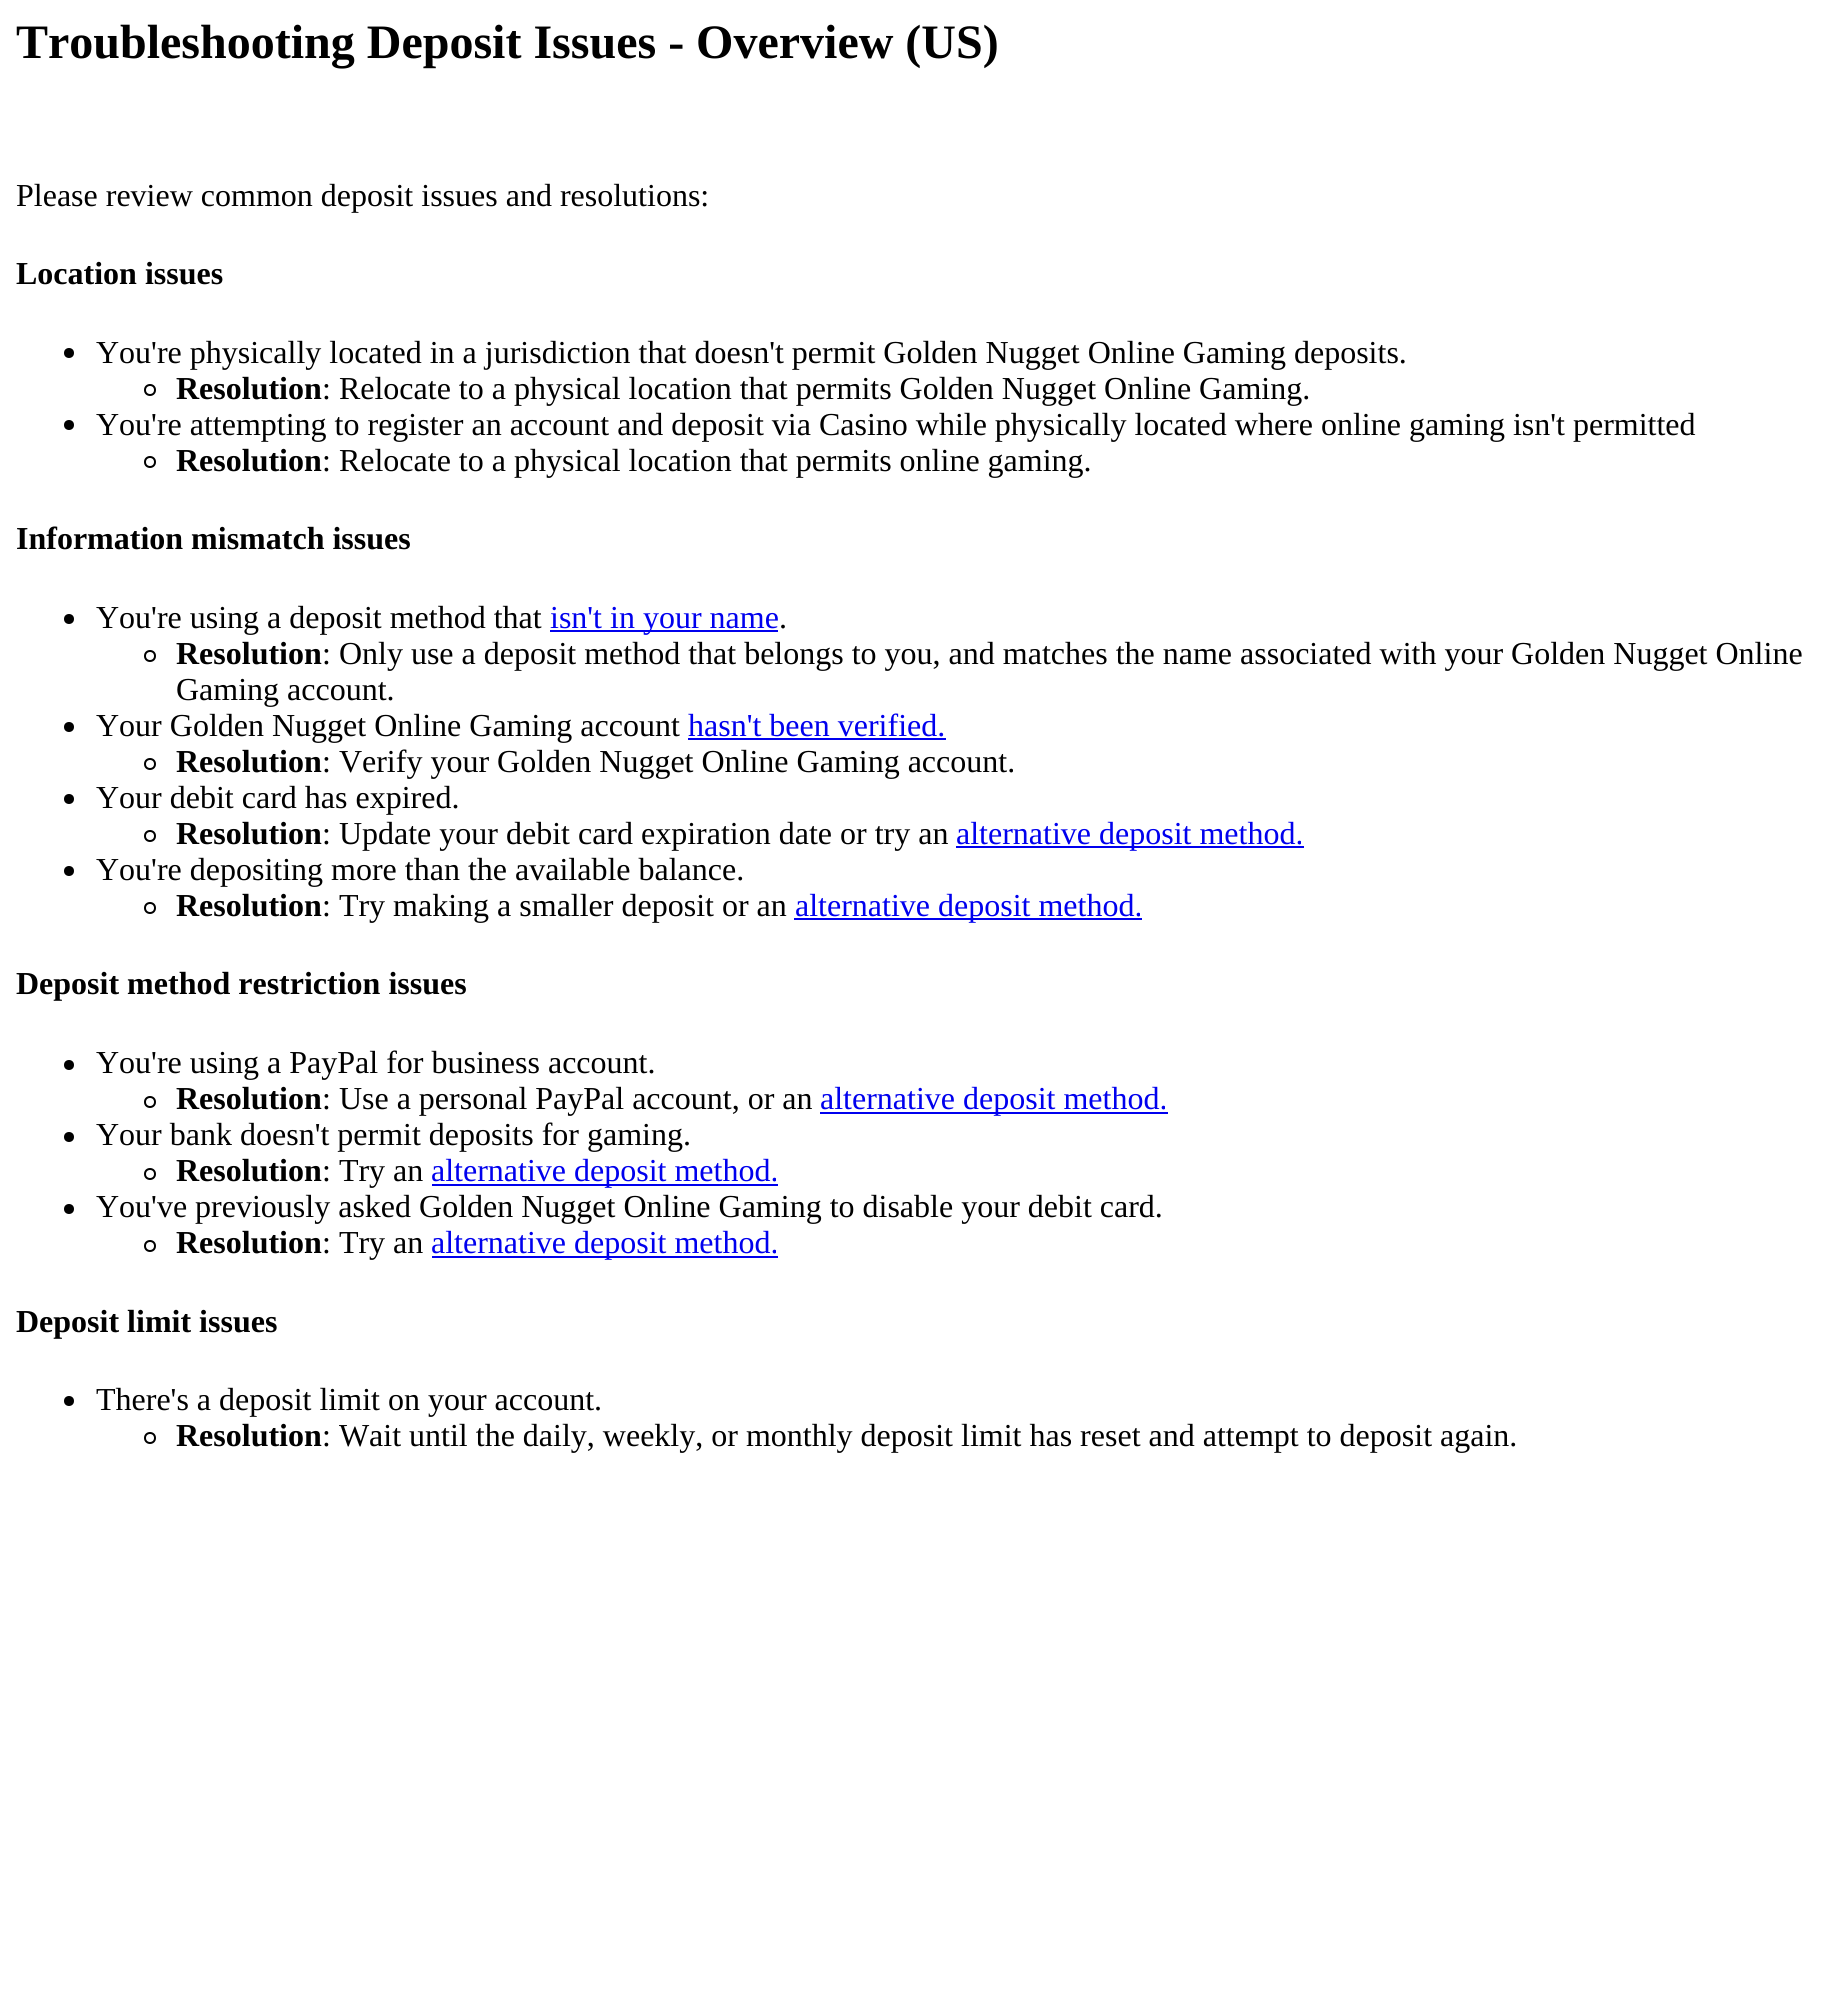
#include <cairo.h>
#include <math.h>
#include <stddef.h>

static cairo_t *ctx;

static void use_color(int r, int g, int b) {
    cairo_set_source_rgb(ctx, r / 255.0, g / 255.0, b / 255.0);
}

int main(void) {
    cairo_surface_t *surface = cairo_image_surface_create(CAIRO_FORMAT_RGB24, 1831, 1999);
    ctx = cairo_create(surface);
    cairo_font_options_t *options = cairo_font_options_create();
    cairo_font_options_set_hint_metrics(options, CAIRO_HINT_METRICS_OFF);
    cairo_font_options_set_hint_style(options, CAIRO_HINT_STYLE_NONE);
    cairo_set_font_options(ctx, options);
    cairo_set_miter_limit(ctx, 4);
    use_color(255, 255, 255);
    cairo_paint(ctx);
    cairo_select_font_face(ctx, "Liberation Serif", CAIRO_FONT_SLANT_NORMAL, CAIRO_FONT_WEIGHT_BOLD);
    cairo_set_font_size(ctx, 48);
    use_color(0, 0, 0);
    cairo_move_to(ctx, 16, 58);
    cairo_show_text(ctx, "Troubleshooting Deposit Issues - Overview (US)");
    cairo_select_font_face(ctx, "Liberation Serif", CAIRO_FONT_SLANT_NORMAL, CAIRO_FONT_WEIGHT_NORMAL);
    cairo_set_font_size(ctx, 32);
    cairo_move_to(ctx, 16, 206);
    cairo_show_text(ctx, "Please review common deposit issues and resolutions:");
    cairo_select_font_face(ctx, "Liberation Serif", CAIRO_FONT_SLANT_NORMAL, CAIRO_FONT_WEIGHT_BOLD);
    cairo_move_to(ctx, 16, 284);
    cairo_show_text(ctx, "Location issues");
    cairo_new_path(ctx);
    cairo_arc(ctx, 69, 353, 5, 0, 2 * M_PI);
    cairo_fill(ctx);
    cairo_select_font_face(ctx, "Liberation Serif", CAIRO_FONT_SLANT_NORMAL, CAIRO_FONT_WEIGHT_NORMAL);
    cairo_move_to(ctx, 96, 363);
    cairo_show_text(ctx, "You're physically located in a jurisdiction that doesn't permit Golden Nugget Online Gaming deposits.");
    cairo_new_path(ctx);
    cairo_arc(ctx, 150, 390, 5, 0, 2 * M_PI);
    cairo_stroke(ctx);
    cairo_select_font_face(ctx, "Liberation Serif", CAIRO_FONT_SLANT_NORMAL, CAIRO_FONT_WEIGHT_BOLD);
    cairo_move_to(ctx, 176, 399);
    cairo_show_text(ctx, "Resolution");
    cairo_select_font_face(ctx, "Liberation Serif", CAIRO_FONT_SLANT_NORMAL, CAIRO_FONT_WEIGHT_NORMAL);
    cairo_move_to(ctx, 322, 399);
    cairo_show_text(ctx, ": Relocate to a physical location that permits Golden Nugget Online Gaming.");
    cairo_new_path(ctx);
    cairo_arc(ctx, 69, 425, 5, 0, 2 * M_PI);
    cairo_fill(ctx);
    cairo_move_to(ctx, 96, 435);
    cairo_show_text(ctx, "You're attempting to register an account and deposit via Casino while physically located where online gaming isn't permitted");
    cairo_new_path(ctx);
    cairo_arc(ctx, 150, 462, 5, 0, 2 * M_PI);
    cairo_stroke(ctx);
    cairo_select_font_face(ctx, "Liberation Serif", CAIRO_FONT_SLANT_NORMAL, CAIRO_FONT_WEIGHT_BOLD);
    cairo_move_to(ctx, 176, 471);
    cairo_show_text(ctx, "Resolution");
    cairo_select_font_face(ctx, "Liberation Serif", CAIRO_FONT_SLANT_NORMAL, CAIRO_FONT_WEIGHT_NORMAL);
    cairo_move_to(ctx, 322, 471);
    cairo_show_text(ctx, ": Relocate to a physical location that permits online gaming.");
    cairo_select_font_face(ctx, "Liberation Serif", CAIRO_FONT_SLANT_NORMAL, CAIRO_FONT_WEIGHT_BOLD);
    cairo_move_to(ctx, 16, 549);
    cairo_show_text(ctx, "Information mismatch issues");
    cairo_new_path(ctx);
    cairo_arc(ctx, 69, 619, 5, 0, 2 * M_PI);
    cairo_fill(ctx);
    cairo_select_font_face(ctx, "Liberation Serif", CAIRO_FONT_SLANT_NORMAL, CAIRO_FONT_WEIGHT_NORMAL);
    cairo_move_to(ctx, 96, 628);
    cairo_show_text(ctx, "You're using a deposit method that");
    use_color(0, 0, 238);
    cairo_rectangle(ctx, 550, 630, 228, 2);
    cairo_fill(ctx);
    cairo_move_to(ctx, 550, 628);
    cairo_show_text(ctx, "isn't in your name");
    use_color(0, 0, 0);
    cairo_move_to(ctx, 779, 628);
    cairo_show_text(ctx, ".");
    cairo_new_path(ctx);
    cairo_arc(ctx, 150, 656, 5, 0, 2 * M_PI);
    cairo_stroke(ctx);
    cairo_select_font_face(ctx, "Liberation Serif", CAIRO_FONT_SLANT_NORMAL, CAIRO_FONT_WEIGHT_BOLD);
    cairo_move_to(ctx, 176, 664);
    cairo_show_text(ctx, "Resolution");
    cairo_select_font_face(ctx, "Liberation Serif", CAIRO_FONT_SLANT_NORMAL, CAIRO_FONT_WEIGHT_NORMAL);
    cairo_move_to(ctx, 322, 664);
    cairo_show_text(ctx, ": Only use a deposit method that belongs to you, and matches the name associated with your Golden Nugget Online");
    cairo_move_to(ctx, 176, 700);
    cairo_show_text(ctx, "Gaming account.");
    cairo_new_path(ctx);
    cairo_arc(ctx, 69, 727, 5, 0, 2 * M_PI);
    cairo_fill(ctx);
    cairo_move_to(ctx, 96, 736);
    cairo_show_text(ctx, "Your Golden Nugget Online Gaming account");
    use_color(0, 0, 238);
    cairo_move_to(ctx, 688, 736);
    cairo_show_text(ctx, "hasn't been verified.");
    cairo_rectangle(ctx, 688, 738, 258, 2);
    cairo_fill(ctx);
    cairo_arc(ctx, 150, 764, 5, 0, 2 * M_PI);
    use_color(0, 0, 0);
    cairo_stroke(ctx);
    cairo_select_font_face(ctx, "Liberation Serif", CAIRO_FONT_SLANT_NORMAL, CAIRO_FONT_WEIGHT_BOLD);
    cairo_move_to(ctx, 176, 772);
    cairo_show_text(ctx, "Resolution");
    cairo_select_font_face(ctx, "Liberation Serif", CAIRO_FONT_SLANT_NORMAL, CAIRO_FONT_WEIGHT_NORMAL);
    cairo_move_to(ctx, 322, 772);
    cairo_show_text(ctx, ": Verify your Golden Nugget Online Gaming account.");
    cairo_new_path(ctx);
    cairo_arc(ctx, 69, 799, 5, 0, 2 * M_PI);
    cairo_fill(ctx);
    cairo_move_to(ctx, 96, 808);
    cairo_show_text(ctx, "Your debit card has expired.");
    cairo_new_path(ctx);
    cairo_arc(ctx, 150, 836, 5, 0, 2 * M_PI);
    cairo_stroke(ctx);
    cairo_select_font_face(ctx, "Liberation Serif", CAIRO_FONT_SLANT_NORMAL, CAIRO_FONT_WEIGHT_BOLD);
    cairo_move_to(ctx, 176, 844);
    cairo_show_text(ctx, "Resolution");
    cairo_select_font_face(ctx, "Liberation Serif", CAIRO_FONT_SLANT_NORMAL, CAIRO_FONT_WEIGHT_NORMAL);
    cairo_move_to(ctx, 322, 844);
    cairo_show_text(ctx, ": Update your debit card expiration date or try an");
    use_color(0, 0, 238);
    cairo_rectangle(ctx, 956, 846, 348, 2);
    cairo_fill(ctx);
    cairo_move_to(ctx, 956, 844);
    cairo_show_text(ctx, "alternative deposit method.");
    use_color(0, 0, 0);
    cairo_new_path(ctx);
    cairo_arc(ctx, 69, 871, 5, 0, 2 * M_PI);
    cairo_fill(ctx);
    cairo_move_to(ctx, 96, 880);
    cairo_show_text(ctx, "You're depositing more than the available balance.");
    cairo_new_path(ctx);
    cairo_arc(ctx, 150, 908, 5, 0, 2 * M_PI);
    cairo_stroke(ctx);
    cairo_select_font_face(ctx, "Liberation Serif", CAIRO_FONT_SLANT_NORMAL, CAIRO_FONT_WEIGHT_BOLD);
    cairo_move_to(ctx, 176, 916);
    cairo_show_text(ctx, "Resolution");
    cairo_select_font_face(ctx, "Liberation Serif", CAIRO_FONT_SLANT_NORMAL, CAIRO_FONT_WEIGHT_NORMAL);
    cairo_move_to(ctx, 322, 916);
    cairo_show_text(ctx, ": Try making a smaller deposit or an");
    use_color(0, 0, 238);
    cairo_rectangle(ctx, 794, 918, 348, 2);
    cairo_fill(ctx);
    cairo_move_to(ctx, 795, 916);
    cairo_show_text(ctx, "alternative deposit method.");
    cairo_select_font_face(ctx, "Liberation Serif", CAIRO_FONT_SLANT_NORMAL, CAIRO_FONT_WEIGHT_BOLD);
    use_color(0, 0, 0);
    cairo_move_to(ctx, 16, 994);
    cairo_show_text(ctx, "Deposit method restriction issues");
    cairo_new_path(ctx);
    cairo_arc(ctx, 69, 1065, 5, 0, 2 * M_PI);
    cairo_fill(ctx);
    cairo_select_font_face(ctx, "Liberation Serif", CAIRO_FONT_SLANT_NORMAL, CAIRO_FONT_WEIGHT_NORMAL);
    cairo_move_to(ctx, 96, 1073);
    cairo_show_text(ctx, "You're using a PayPal for business account.");
    cairo_new_path(ctx);
    cairo_arc(ctx, 150, 1102, 5, 0, 2 * M_PI);
    cairo_stroke(ctx);
    cairo_select_font_face(ctx, "Liberation Serif", CAIRO_FONT_SLANT_NORMAL, CAIRO_FONT_WEIGHT_BOLD);
    cairo_move_to(ctx, 176, 1109);
    cairo_show_text(ctx, "Resolution");
    cairo_select_font_face(ctx, "Liberation Serif", CAIRO_FONT_SLANT_NORMAL, CAIRO_FONT_WEIGHT_NORMAL);
    cairo_move_to(ctx, 322, 1109);
    cairo_show_text(ctx, ": Use a personal PayPal account, or an");
    use_color(0, 0, 238);
    cairo_rectangle(ctx, 820, 1112, 348, 2);
    cairo_fill(ctx);
    cairo_move_to(ctx, 820, 1109);
    cairo_show_text(ctx, "alternative deposit method.");
    use_color(0, 0, 0);
    cairo_new_path(ctx);
    cairo_arc(ctx, 69, 1137, 5, 0, 2 * M_PI);
    cairo_fill(ctx);
    cairo_move_to(ctx, 96, 1145);
    cairo_show_text(ctx, "Your bank doesn't permit deposits for gaming.");
    cairo_new_path(ctx);
    cairo_arc(ctx, 150, 1174, 5, 0, 2 * M_PI);
    cairo_stroke(ctx);
    cairo_select_font_face(ctx, "Liberation Serif", CAIRO_FONT_SLANT_NORMAL, CAIRO_FONT_WEIGHT_BOLD);
    cairo_move_to(ctx, 176, 1181);
    cairo_show_text(ctx, "Resolution");
    cairo_select_font_face(ctx, "Liberation Serif", CAIRO_FONT_SLANT_NORMAL, CAIRO_FONT_WEIGHT_NORMAL);
    cairo_move_to(ctx, 322, 1181);
    cairo_show_text(ctx, ": Try an");
    use_color(0, 0, 238);
    cairo_rectangle(ctx, 432, 1184, 346, 2);
    cairo_fill(ctx);
    cairo_move_to(ctx, 431, 1181);
    cairo_show_text(ctx, "alternative deposit method.");
    use_color(0, 0, 0);
    cairo_new_path(ctx);
    cairo_arc(ctx, 69, 1209, 5, 0, 2 * M_PI);
    cairo_fill(ctx);
    cairo_move_to(ctx, 96, 1217);
    cairo_show_text(ctx, "You've previously asked Golden Nugget Online Gaming to disable your debit card.");
    cairo_new_path(ctx);
    cairo_arc(ctx, 150, 1246, 5, 0, 2 * M_PI);
    cairo_stroke(ctx);
    cairo_select_font_face(ctx, "Liberation Serif", CAIRO_FONT_SLANT_NORMAL, CAIRO_FONT_WEIGHT_BOLD);
    cairo_move_to(ctx, 176, 1253);
    cairo_show_text(ctx, "Resolution");
    cairo_select_font_face(ctx, "Liberation Serif", CAIRO_FONT_SLANT_NORMAL, CAIRO_FONT_WEIGHT_NORMAL);
    cairo_move_to(ctx, 322, 1253);
    cairo_show_text(ctx, ": Try an");
    use_color(0, 0, 238);
    cairo_rectangle(ctx, 432, 1256, 346, 2);
    cairo_fill(ctx);
    cairo_move_to(ctx, 431, 1253);
    cairo_show_text(ctx, "alternative deposit method.");
    cairo_select_font_face(ctx, "Liberation Serif", CAIRO_FONT_SLANT_NORMAL, CAIRO_FONT_WEIGHT_BOLD);
    use_color(0, 0, 0);
    cairo_move_to(ctx, 16, 1332);
    cairo_show_text(ctx, "Deposit limit issues");
    cairo_new_path(ctx);
    cairo_arc(ctx, 69, 1401, 5, 0, 2 * M_PI);
    cairo_fill(ctx);
    cairo_select_font_face(ctx, "Liberation Serif", CAIRO_FONT_SLANT_NORMAL, CAIRO_FONT_WEIGHT_NORMAL);
    cairo_move_to(ctx, 96, 1410);
    cairo_show_text(ctx, "There's a deposit limit on your account.");
    cairo_new_path(ctx);
    cairo_arc(ctx, 150, 1438, 5, 0, 2 * M_PI);
    cairo_stroke(ctx);
    cairo_select_font_face(ctx, "Liberation Serif", CAIRO_FONT_SLANT_NORMAL, CAIRO_FONT_WEIGHT_BOLD);
    cairo_move_to(ctx, 176, 1446);
    cairo_show_text(ctx, "Resolution");
    cairo_select_font_face(ctx, "Liberation Serif", CAIRO_FONT_SLANT_NORMAL, CAIRO_FONT_WEIGHT_NORMAL);
    cairo_move_to(ctx, 322, 1446);
    cairo_show_text(ctx, ": Wait until the daily, weekly, or monthly deposit limit has reset and attempt to deposit again.");
    cairo_surface_write_to_png(surface, "result.png");
    cairo_font_options_destroy(options);
    cairo_destroy(ctx);
    cairo_surface_destroy(surface);
    return 0;
}
